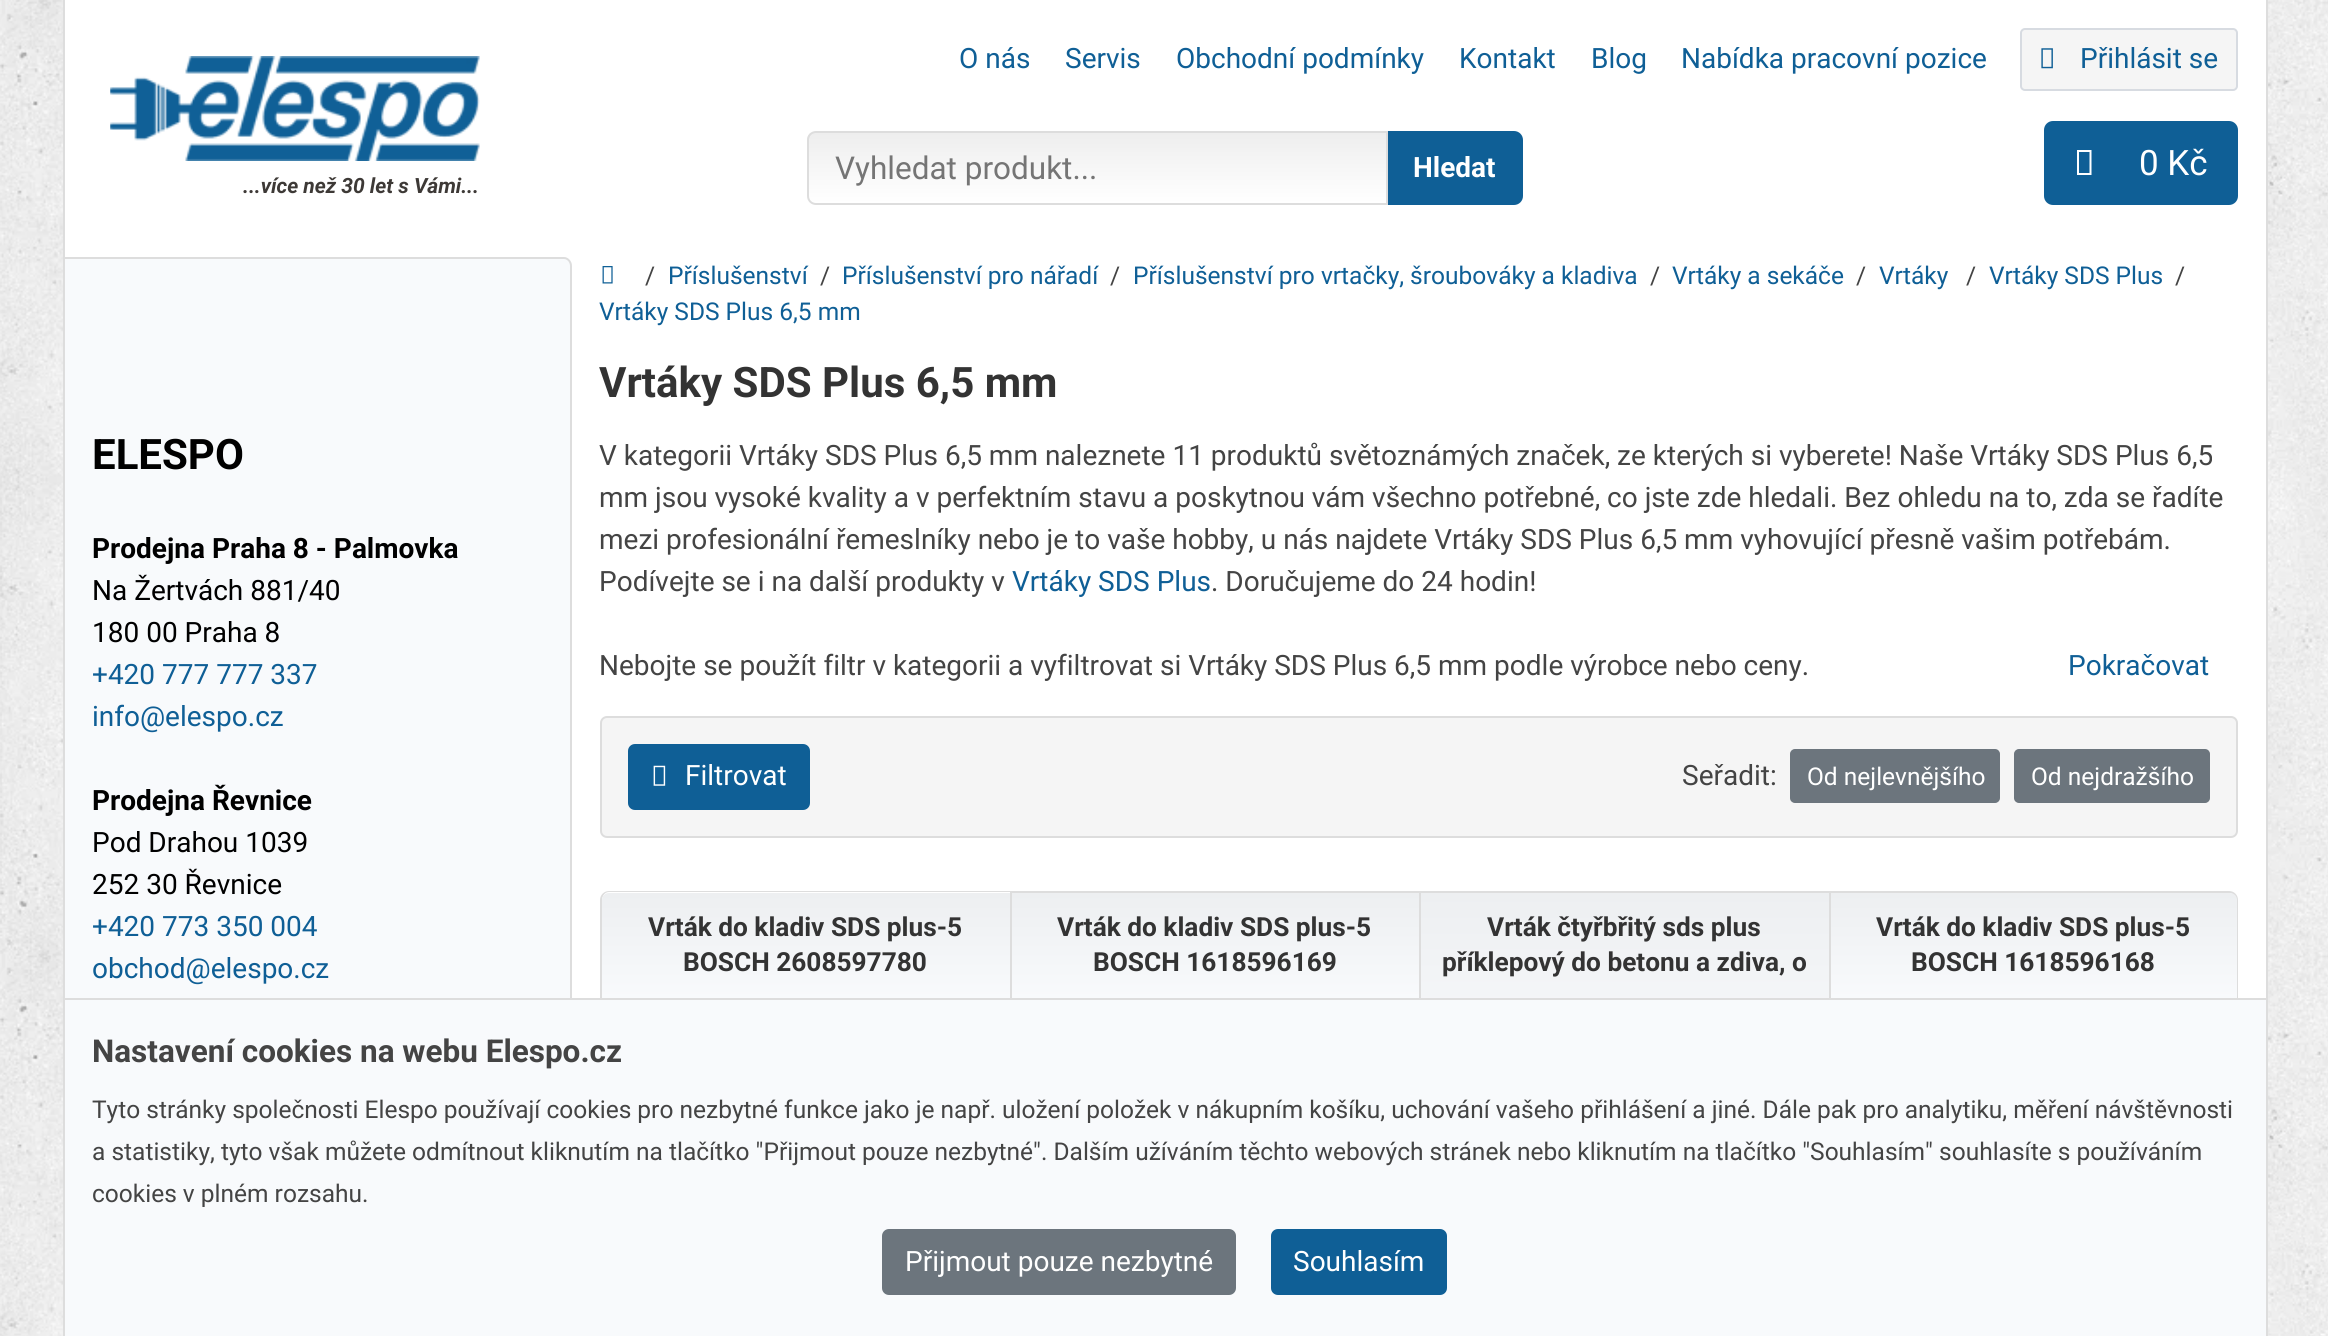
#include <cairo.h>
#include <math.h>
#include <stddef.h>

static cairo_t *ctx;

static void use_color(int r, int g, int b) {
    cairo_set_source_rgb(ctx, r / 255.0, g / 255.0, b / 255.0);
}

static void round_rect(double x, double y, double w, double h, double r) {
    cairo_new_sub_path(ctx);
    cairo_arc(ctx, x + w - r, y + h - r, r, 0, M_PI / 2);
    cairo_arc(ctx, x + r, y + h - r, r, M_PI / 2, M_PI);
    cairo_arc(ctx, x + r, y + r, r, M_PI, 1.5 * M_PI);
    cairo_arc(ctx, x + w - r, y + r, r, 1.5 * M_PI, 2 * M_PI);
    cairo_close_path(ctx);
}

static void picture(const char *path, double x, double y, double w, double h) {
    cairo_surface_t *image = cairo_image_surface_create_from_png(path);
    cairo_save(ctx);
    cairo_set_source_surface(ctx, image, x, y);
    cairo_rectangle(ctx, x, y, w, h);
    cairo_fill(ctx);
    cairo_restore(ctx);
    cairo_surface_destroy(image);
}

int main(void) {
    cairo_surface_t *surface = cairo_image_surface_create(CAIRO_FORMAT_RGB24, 2328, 1336);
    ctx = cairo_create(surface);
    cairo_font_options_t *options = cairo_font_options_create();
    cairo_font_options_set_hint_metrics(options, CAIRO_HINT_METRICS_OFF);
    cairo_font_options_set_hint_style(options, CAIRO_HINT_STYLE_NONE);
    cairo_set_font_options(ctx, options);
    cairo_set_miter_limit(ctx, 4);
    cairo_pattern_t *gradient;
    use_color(255, 255, 255);
    cairo_paint(ctx);
    picture("img1.png", 0, 0, 2328, 1336);
    use_color(255, 255, 255);
    cairo_rectangle(ctx, 65, 0, 2201, 998);
    cairo_fill(ctx);
    use_color(221, 221, 221);
    cairo_rectangle(ctx, 2266, 0, 2, 998);
    cairo_fill(ctx);
    cairo_rectangle(ctx, 63, 0, 2, 998);
    cairo_fill(ctx);
    cairo_select_font_face(ctx, "Roboto", CAIRO_FONT_SLANT_NORMAL, CAIRO_FONT_WEIGHT_NORMAL);
    cairo_set_font_size(ctx, 28);
    use_color(15, 95, 150);
    cairo_move_to(ctx, 959, 68);
    cairo_show_text(ctx, "O nás");
    cairo_move_to(ctx, 1065, 68);
    cairo_show_text(ctx, "Servis");
    cairo_move_to(ctx, 1176, 68);
    cairo_show_text(ctx, "Obchodní podmínky");
    cairo_move_to(ctx, 1459, 68);
    cairo_show_text(ctx, "Kontakt");
    cairo_move_to(ctx, 1591, 68);
    cairo_show_text(ctx, "Blog");
    cairo_move_to(ctx, 1681, 68);
    cairo_show_text(ctx, "Nabídka pracovní pozice");
    use_color(245, 245, 245);
    round_rect(2021, 29, 216, 61, 4);
    cairo_fill_preserve(ctx);
    use_color(215, 219, 225);
    cairo_stroke(ctx);
    picture("img2.png", 2041, 48, 12, 21);
    use_color(15, 95, 150);
    cairo_move_to(ctx, 2080, 68);
    cairo_show_text(ctx, "Přihlásit se");
    picture("img3.png", 110, 56, 370, 105);
    cairo_select_font_face(ctx, "Roboto", CAIRO_FONT_SLANT_ITALIC, CAIRO_FONT_WEIGHT_BOLD);
    cairo_set_font_size(ctx, 21);
    use_color(61, 57, 54);
    cairo_move_to(ctx, 243, 193);
    cairo_show_text(ctx, "...více než 30 let s Vámi...");
    cairo_save(ctx);
    cairo_new_path(ctx);
    cairo_move_to(ctx, 816, 131);
    cairo_line_to(ctx, 1388, 131);
    cairo_line_to(ctx, 1388, 205);
    cairo_line_to(ctx, 816, 205);
    cairo_curve_to(ctx, 811, 205, 807, 201, 807, 196);
    cairo_line_to(ctx, 807, 140);
    cairo_curve_to(ctx, 807, 135, 811, 131, 816, 131);
    cairo_close_path(ctx);
    cairo_clip(ctx);
    gradient = cairo_pattern_create_linear(1097, 133, 1097, 203);
    cairo_pattern_add_color_stop_rgba(gradient, 0, 0.933, 0.933, 0.933, 1);
    cairo_pattern_add_color_stop_rgba(gradient, 1, 1, 1, 1, 1);
    cairo_set_source(ctx, gradient);
    cairo_pattern_destroy(gradient);
    cairo_rectangle(ctx, 807, 133, 579, 70);
    cairo_fill(ctx);
    cairo_restore(ctx);
    cairo_new_path(ctx);
    cairo_move_to(ctx, 816, 132);
    cairo_line_to(ctx, 1387, 132);
    cairo_line_to(ctx, 1387, 204);
    cairo_line_to(ctx, 816, 204);
    cairo_curve_to(ctx, 811.5, 204, 808, 200.5, 808, 196);
    cairo_line_to(ctx, 808, 140);
    cairo_curve_to(ctx, 808, 135.5, 811.5, 132, 816, 132);
    cairo_close_path(ctx);
    use_color(221, 221, 221);
    cairo_stroke(ctx);
    cairo_select_font_face(ctx, "Roboto", CAIRO_FONT_SLANT_NORMAL, CAIRO_FONT_WEIGHT_NORMAL);
    cairo_set_font_size(ctx, 31.5);
    use_color(117, 117, 117);
    cairo_move_to(ctx, 835, 179);
    cairo_show_text(ctx, "Vyhledat produkt...");
    use_color(15, 95, 150);
    cairo_new_path(ctx);
    cairo_move_to(ctx, 1388, 131);
    cairo_line_to(ctx, 1514, 131);
    cairo_curve_to(ctx, 1519, 131, 1523, 135, 1523, 140);
    cairo_line_to(ctx, 1523, 196);
    cairo_curve_to(ctx, 1523, 201, 1519, 205, 1514, 205);
    cairo_line_to(ctx, 1388, 205);
    cairo_close_path(ctx);
    cairo_fill(ctx);
    cairo_select_font_face(ctx, "Roboto", CAIRO_FONT_SLANT_NORMAL, CAIRO_FONT_WEIGHT_BOLD);
    cairo_set_font_size(ctx, 28);
    use_color(255, 255, 255);
    cairo_move_to(ctx, 1413, 177);
    cairo_show_text(ctx, "Hledat");
    use_color(15, 95, 150);
    round_rect(2045, 122, 192, 82, 8);
    cairo_fill_preserve(ctx);
    cairo_stroke(ctx);
    use_color(255, 255, 255);
    cairo_new_path(ctx);
    cairo_move_to(ctx, 2077, 175);
    cairo_line_to(ctx, 2077, 150);
    cairo_line_to(ctx, 2091.5, 150);
    cairo_line_to(ctx, 2091.5, 175);
    cairo_close_path(ctx);
    cairo_move_to(ctx, 2079, 173);
    cairo_line_to(ctx, 2089.5, 173);
    cairo_line_to(ctx, 2089.5, 152);
    cairo_line_to(ctx, 2079, 152);
    cairo_close_path(ctx);
    cairo_fill(ctx);
    cairo_select_font_face(ctx, "Roboto", CAIRO_FONT_SLANT_NORMAL, CAIRO_FONT_WEIGHT_NORMAL);
    cairo_set_font_size(ctx, 35);
    cairo_move_to(ctx, 2139, 175);
    cairo_show_text(ctx, "0 Kč");
    use_color(248, 250, 252);
    cairo_new_path(ctx);
    cairo_move_to(ctx, 65, 257);
    cairo_line_to(ctx, 563, 257);
    cairo_curve_to(ctx, 568, 257, 572, 261, 572, 266);
    cairo_line_to(ctx, 572, 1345);
    cairo_line_to(ctx, 65, 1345);
    cairo_close_path(ctx);
    cairo_fill(ctx);
    use_color(221, 221, 221);
    cairo_set_fill_rule(ctx, CAIRO_FILL_RULE_EVEN_ODD);
    cairo_new_path(ctx);
    cairo_move_to(ctx, 65, 257);
    cairo_line_to(ctx, 564, 257);
    cairo_curve_to(ctx, 568, 257, 572, 261, 572, 266);
    cairo_line_to(ctx, 572, 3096);
    cairo_line_to(ctx, 65, 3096);
    cairo_close_path(ctx);
    cairo_move_to(ctx, 65, 259);
    cairo_line_to(ctx, 564, 259);
    cairo_curve_to(ctx, 567, 259, 570, 262, 570, 266);
    cairo_line_to(ctx, 570, 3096);
    cairo_line_to(ctx, 65, 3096);
    cairo_close_path(ctx);
    cairo_fill(ctx);
    cairo_select_font_face(ctx, "Roboto", CAIRO_FONT_SLANT_NORMAL, CAIRO_FONT_WEIGHT_BOLD);
    cairo_set_font_size(ctx, 42);
    use_color(0, 0, 0);
    cairo_move_to(ctx, 92, 469);
    cairo_show_text(ctx, "ELESPO");
    cairo_set_font_size(ctx, 28);
    cairo_move_to(ctx, 92, 558);
    cairo_show_text(ctx, "Prodejna Praha 8 - Palmovka");
    cairo_select_font_face(ctx, "Roboto", CAIRO_FONT_SLANT_NORMAL, CAIRO_FONT_WEIGHT_NORMAL);
    cairo_move_to(ctx, 92, 600);
    cairo_show_text(ctx, "Na Žertvách 881/40");
    cairo_move_to(ctx, 92, 642);
    cairo_show_text(ctx, "180 00 Praha 8");
    use_color(15, 95, 150);
    cairo_move_to(ctx, 92, 684);
    cairo_show_text(ctx, "+420 777 777 337");
    cairo_move_to(ctx, 92, 726);
    cairo_show_text(ctx, "info@elespo.cz");
    cairo_select_font_face(ctx, "Roboto", CAIRO_FONT_SLANT_NORMAL, CAIRO_FONT_WEIGHT_BOLD);
    use_color(0, 0, 0);
    cairo_move_to(ctx, 92, 810);
    cairo_show_text(ctx, "Prodejna Řevnice");
    cairo_select_font_face(ctx, "Roboto", CAIRO_FONT_SLANT_NORMAL, CAIRO_FONT_WEIGHT_NORMAL);
    cairo_move_to(ctx, 92, 852);
    cairo_show_text(ctx, "Pod Drahou 1039");
    cairo_move_to(ctx, 92, 894);
    cairo_show_text(ctx, "252 30 Řevnice");
    use_color(15, 95, 150);
    cairo_move_to(ctx, 92, 936);
    cairo_show_text(ctx, "+420 773 350 004");
    cairo_move_to(ctx, 92, 978);
    cairo_show_text(ctx, "obchod@elespo.cz");
    picture("img4.png", 602, 266, 11, 18);
    cairo_set_font_size(ctx, 24.5);
    use_color(68, 68, 68);
    cairo_move_to(ctx, 645, 284);
    cairo_show_text(ctx, "/");
    use_color(15, 95, 150);
    cairo_move_to(ctx, 668, 284);
    cairo_show_text(ctx, "Příslušenství");
    use_color(68, 68, 68);
    cairo_move_to(ctx, 820, 284);
    cairo_show_text(ctx, "/");
    use_color(15, 95, 150);
    cairo_move_to(ctx, 842, 284);
    cairo_show_text(ctx, "Příslušenství pro nářadí");
    use_color(68, 68, 68);
    cairo_move_to(ctx, 1110, 284);
    cairo_show_text(ctx, "/");
    use_color(15, 95, 150);
    cairo_move_to(ctx, 1133, 284);
    cairo_show_text(ctx, "Příslušenství pro vrtačky, šroubováky a kladiva");
    use_color(68, 68, 68);
    cairo_move_to(ctx, 1650, 284);
    cairo_show_text(ctx, "/");
    use_color(15, 95, 150);
    cairo_move_to(ctx, 1672, 284);
    cairo_show_text(ctx, "Vrtáky a sekáče");
    use_color(68, 68, 68);
    cairo_move_to(ctx, 1856, 284);
    cairo_show_text(ctx, "/");
    use_color(15, 95, 150);
    cairo_move_to(ctx, 1879, 284);
    cairo_show_text(ctx, "Vrtáky");
    use_color(68, 68, 68);
    cairo_move_to(ctx, 1966, 284);
    cairo_show_text(ctx, "/");
    use_color(15, 95, 150);
    cairo_move_to(ctx, 1989, 284);
    cairo_show_text(ctx, "Vrtáky SDS Plus");
    use_color(68, 68, 68);
    cairo_move_to(ctx, 2175, 284);
    cairo_show_text(ctx, "/");
    use_color(15, 95, 150);
    cairo_move_to(ctx, 599, 320);
    cairo_show_text(ctx, "Vrtáky SDS Plus 6,5 mm");
    cairo_select_font_face(ctx, "Roboto", CAIRO_FONT_SLANT_NORMAL, CAIRO_FONT_WEIGHT_BOLD);
    cairo_set_font_size(ctx, 42);
    use_color(51, 51, 51);
    cairo_move_to(ctx, 599, 397);
    cairo_show_text(ctx, "Vrtáky SDS Plus 6,5 mm");
    cairo_select_font_face(ctx, "Roboto", CAIRO_FONT_SLANT_NORMAL, CAIRO_FONT_WEIGHT_NORMAL);
    cairo_set_font_size(ctx, 28);
    use_color(68, 68, 68);
    cairo_move_to(ctx, 599, 465);
    cairo_show_text(ctx, "V kategorii Vrtáky SDS Plus 6,5 mm naleznete 11 produktů světoznámých značek, ze kterých si vyberete! Naše Vrtáky SDS Plus 6,5");
    cairo_move_to(ctx, 599, 507);
    cairo_show_text(ctx, "mm jsou vysoké kvality a v perfektním stavu a poskytnou vám všechno potřebné, co jste zde hledali. Bez ohledu na to, zda se řadíte");
    cairo_move_to(ctx, 599, 549);
    cairo_show_text(ctx, "mezi profesionální řemeslníky nebo je to vaše hobby, u nás najdete Vrtáky SDS Plus 6,5 mm vyhovující přesně vašim potřebám.");
    cairo_move_to(ctx, 599, 591);
    cairo_show_text(ctx, "Podívejte se i na další produkty v");
    use_color(15, 95, 150);
    cairo_move_to(ctx, 1012, 591);
    cairo_show_text(ctx, "Vrtáky SDS Plus");
    use_color(68, 68, 68);
    cairo_move_to(ctx, 1211, 591);
    cairo_show_text(ctx, ". Doručujeme do 24 hodin!");
    cairo_move_to(ctx, 599, 675);
    cairo_show_text(ctx, "Nebojte se použít filtr v kategorii a vyfiltrovat si Vrtáky SDS Plus 6,5 mm podle výrobce nebo ceny.");
    use_color(15, 95, 150);
    cairo_move_to(ctx, 2068, 675);
    cairo_show_text(ctx, "Pokračovat");
    use_color(245, 245, 245);
    round_rect(601, 717, 1636, 120, 6);
    cairo_fill_preserve(ctx);
    use_color(221, 221, 221);
    cairo_stroke(ctx);
    use_color(15, 95, 150);
    round_rect(629, 745, 180, 64, 6);
    cairo_fill_preserve(ctx);
    cairo_stroke(ctx);
    picture("img5.png", 653, 765, 13, 21);
    use_color(255, 255, 255);
    cairo_move_to(ctx, 685, 785);
    cairo_show_text(ctx, "Filtrovat");
    use_color(68, 68, 68);
    cairo_move_to(ctx, 1682, 785);
    cairo_show_text(ctx, "Seřadit:");
    use_color(108, 117, 125);
    round_rect(1791, 750, 208, 52, 4);
    cairo_fill_preserve(ctx);
    cairo_stroke(ctx);
    cairo_set_font_size(ctx, 24.5);
    use_color(255, 255, 255);
    cairo_move_to(ctx, 1807, 785);
    cairo_show_text(ctx, "Od nejlevnějšího");
    use_color(108, 117, 125);
    round_rect(2015, 750, 194, 52, 4);
    cairo_fill_preserve(ctx);
    cairo_stroke(ctx);
    use_color(255, 255, 255);
    cairo_move_to(ctx, 2031, 785);
    cairo_show_text(ctx, "Od nejdražšího");
    use_color(221, 221, 221);
    cairo_new_path(ctx);
    cairo_move_to(ctx, 609, 891);
    cairo_line_to(ctx, 1010, 891);
    cairo_line_to(ctx, 1010, 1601);
    cairo_line_to(ctx, 609, 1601);
    cairo_curve_to(ctx, 604, 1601, 600, 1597, 600, 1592);
    cairo_line_to(ctx, 600, 900);
    cairo_curve_to(ctx, 600, 895, 604, 891, 609, 891);
    cairo_close_path(ctx);
    cairo_move_to(ctx, 609, 892);
    cairo_line_to(ctx, 1010, 892);
    cairo_line_to(ctx, 1010, 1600);
    cairo_line_to(ctx, 609, 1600);
    cairo_curve_to(ctx, 605, 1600, 602, 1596, 602, 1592);
    cairo_line_to(ctx, 602, 900);
    cairo_curve_to(ctx, 602, 896, 605, 892, 609, 892);
    cairo_close_path(ctx);
    cairo_fill(ctx);
    gradient = cairo_pattern_create_linear(806, 893, 806, 998);
    cairo_pattern_add_color_stop_rgba(gradient, 0, 0.929, 0.937, 0.945, 1);
    cairo_pattern_add_color_stop_rgba(gradient, 1, 0.973, 0.98, 0.988, 1);
    cairo_set_source(ctx, gradient);
    cairo_pattern_destroy(gradient);
    cairo_new_path(ctx);
    cairo_move_to(ctx, 609, 893);
    cairo_line_to(ctx, 1010, 893);
    cairo_line_to(ctx, 1010, 998);
    cairo_line_to(ctx, 602, 998);
    cairo_line_to(ctx, 602, 900);
    cairo_curve_to(ctx, 602, 896, 605, 893, 609, 893);
    cairo_close_path(ctx);
    cairo_fill(ctx);
    cairo_select_font_face(ctx, "Roboto", CAIRO_FONT_SLANT_NORMAL, CAIRO_FONT_WEIGHT_BOLD);
    cairo_set_font_size(ctx, 26.25);
    use_color(51, 51, 51);
    cairo_move_to(ctx, 648, 936);
    cairo_show_text(ctx, "Vrták do kladiv SDS plus-5");
    cairo_move_to(ctx, 683, 971);
    cairo_show_text(ctx, "BOSCH 2608597780");
    use_color(221, 221, 221);
    cairo_rectangle(ctx, 1010, 891, 819, 2);
    cairo_fill(ctx);
    cairo_rectangle(ctx, 1010, 891, 2, 107);
    cairo_fill(ctx);
    gradient = cairo_pattern_create_linear(1215, 893, 1215, 998);
    cairo_pattern_add_color_stop_rgba(gradient, 0, 0.929, 0.937, 0.945, 1);
    cairo_pattern_add_color_stop_rgba(gradient, 1, 0.973, 0.98, 0.988, 1);
    cairo_set_source(ctx, gradient);
    cairo_pattern_destroy(gradient);
    cairo_rectangle(ctx, 1012, 893, 407, 105);
    cairo_fill(ctx);
    use_color(51, 51, 51);
    cairo_move_to(ctx, 1057, 936);
    cairo_show_text(ctx, "Vrták do kladiv SDS plus-5");
    cairo_move_to(ctx, 1093, 971);
    cairo_show_text(ctx, "BOSCH 1618596169");
    use_color(221, 221, 221);
    cairo_rectangle(ctx, 1419, 891, 2, 107);
    cairo_fill(ctx);
    gradient = cairo_pattern_create_linear(1625, 893, 1625, 1068);
    cairo_pattern_add_color_stop_rgba(gradient, 0, 0.929, 0.937, 0.945, 1);
    cairo_pattern_add_color_stop_rgba(gradient, 1, 0.973, 0.98, 0.988, 1);
    cairo_set_source(ctx, gradient);
    cairo_pattern_destroy(gradient);
    cairo_rectangle(ctx, 1421, 893, 408, 105);
    cairo_fill(ctx);
    use_color(51, 51, 51);
    cairo_move_to(ctx, 1487, 936);
    cairo_show_text(ctx, "Vrták čtyřbřitý sds plus");
    cairo_move_to(ctx, 1442, 971);
    cairo_show_text(ctx, "příklepový do betonu a zdiva, o");
    cairo_new_path(ctx);
    cairo_move_to(ctx, 1830, 892);
    cairo_line_to(ctx, 2229, 892);
    cairo_curve_to(ctx, 2233.5, 892, 2237, 895.5, 2237, 900);
    cairo_line_to(ctx, 2237, 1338);
    cairo_curve_to(ctx, 2237, 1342.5, 2233.5, 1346, 2229, 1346);
    cairo_line_to(ctx, 1830, 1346);
    cairo_close_path(ctx);
    use_color(221, 221, 221);
    cairo_stroke(ctx);
    gradient = cairo_pattern_create_linear(2034, 893, 2034, 998);
    cairo_pattern_add_color_stop_rgba(gradient, 0, 0.929, 0.937, 0.945, 1);
    cairo_pattern_add_color_stop_rgba(gradient, 1, 0.973, 0.98, 0.988, 1);
    cairo_set_source(ctx, gradient);
    cairo_pattern_destroy(gradient);
    cairo_new_path(ctx);
    cairo_move_to(ctx, 1831, 893);
    cairo_line_to(ctx, 2230, 893);
    cairo_curve_to(ctx, 2234, 893, 2237, 896, 2237, 900);
    cairo_line_to(ctx, 2237, 998);
    cairo_line_to(ctx, 1831, 998);
    cairo_close_path(ctx);
    cairo_fill(ctx);
    use_color(51, 51, 51);
    cairo_move_to(ctx, 1876, 936);
    cairo_show_text(ctx, "Vrták do kladiv SDS plus-5");
    cairo_move_to(ctx, 1911, 971);
    cairo_show_text(ctx, "BOSCH 1618596168");
    use_color(248, 250, 252);
    cairo_rectangle(ctx, 570, 1000, 1696, 336);
    cairo_fill(ctx);
    use_color(221, 221, 221);
    cairo_rectangle(ctx, 63, 998, 2205, 2);
    cairo_fill(ctx);
    cairo_rectangle(ctx, 2266, 998, 2, 338);
    cairo_fill(ctx);
    cairo_rectangle(ctx, 63, 998, 2, 338);
    cairo_fill(ctx);
    cairo_set_font_size(ctx, 31.5);
    use_color(68, 68, 68);
    cairo_move_to(ctx, 92, 1062);
    cairo_show_text(ctx, "Nastavení cookies na webu Elespo.cz");
    cairo_select_font_face(ctx, "Roboto", CAIRO_FONT_SLANT_NORMAL, CAIRO_FONT_WEIGHT_NORMAL);
    cairo_set_font_size(ctx, 24.5);
    cairo_move_to(ctx, 92, 1118);
    cairo_show_text(ctx, "Tyto stránky společnosti Elespo používají cookies pro nezbytné funkce jako je např. uložení položek v nákupním košíku, uchování vašeho přihlášení a jiné. Dále pak pro analytiku, měření návštěvnosti");
    cairo_move_to(ctx, 92, 1160);
    cairo_show_text(ctx, "a statistiky, tyto však můžete odmítnout kliknutím na tlačítko \"Přijmout pouze nezbytné\". Dalším užíváním těchto webových stránek nebo kliknutím na tlačítko \"Souhlasím\" souhlasíte s používáním");
    cairo_move_to(ctx, 92, 1202);
    cairo_show_text(ctx, "cookies v plném rozsahu.");
    use_color(108, 117, 125);
    round_rect(883, 1230, 352, 64, 6);
    cairo_fill_preserve(ctx);
    cairo_stroke(ctx);
    cairo_set_font_size(ctx, 28);
    use_color(255, 255, 255);
    cairo_move_to(ctx, 905, 1271);
    cairo_show_text(ctx, "Přijmout pouze nezbytné");
    use_color(15, 95, 150);
    round_rect(1272, 1230, 174, 64, 6);
    cairo_fill_preserve(ctx);
    cairo_stroke(ctx);
    use_color(255, 255, 255);
    cairo_move_to(ctx, 1293, 1271);
    cairo_show_text(ctx, "Souhlasím");
    cairo_surface_write_to_png(surface, "result.png");
    cairo_font_options_destroy(options);
    cairo_destroy(ctx);
    cairo_surface_destroy(surface);
    return 0;
}
